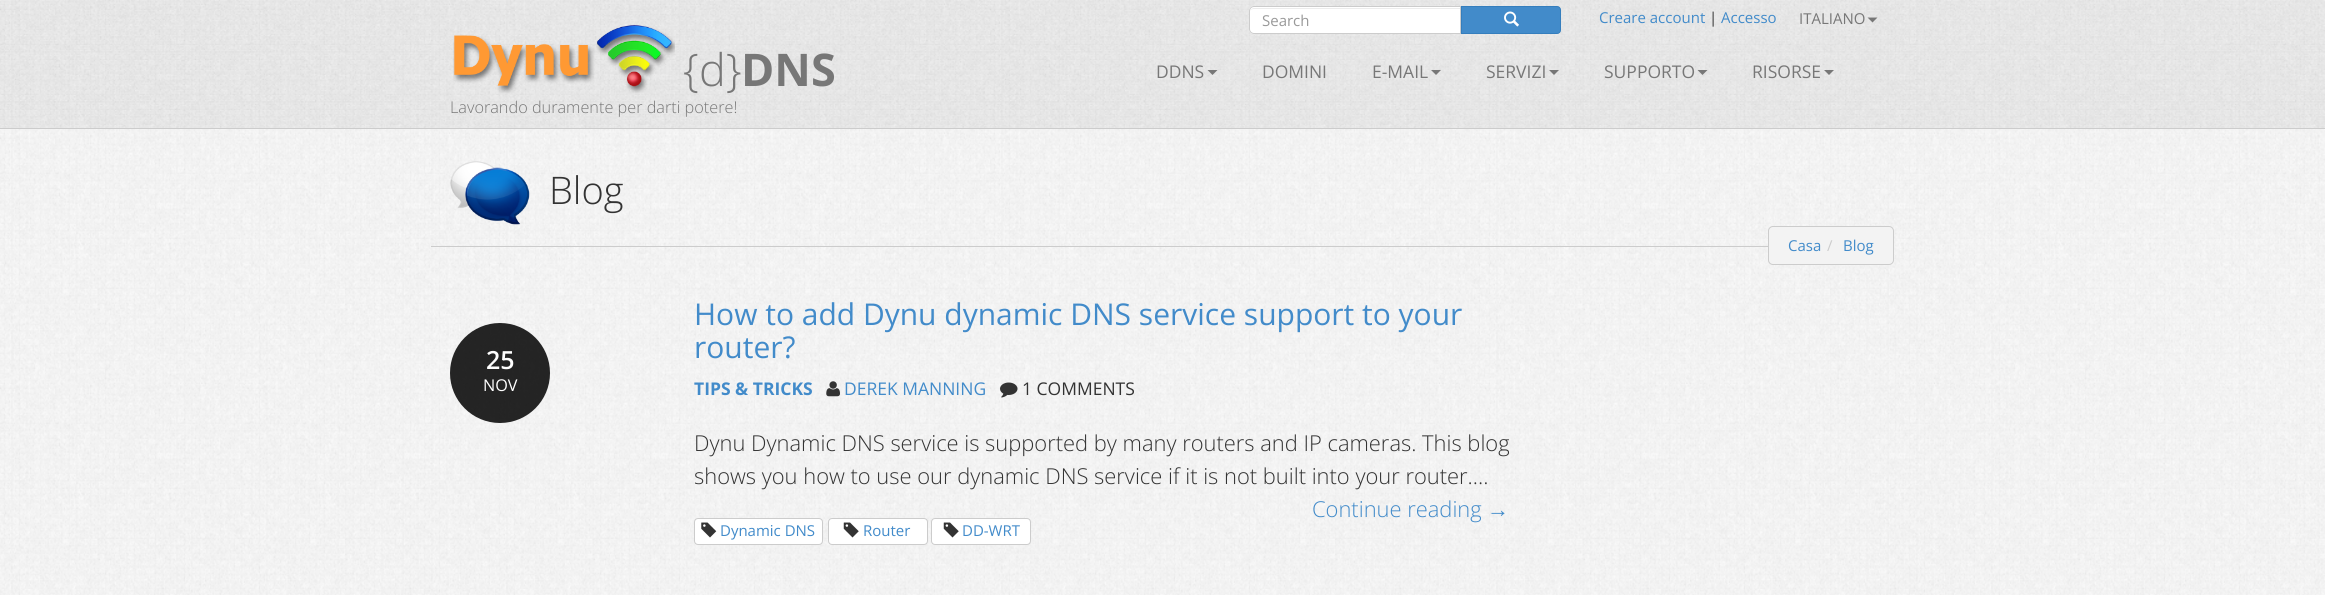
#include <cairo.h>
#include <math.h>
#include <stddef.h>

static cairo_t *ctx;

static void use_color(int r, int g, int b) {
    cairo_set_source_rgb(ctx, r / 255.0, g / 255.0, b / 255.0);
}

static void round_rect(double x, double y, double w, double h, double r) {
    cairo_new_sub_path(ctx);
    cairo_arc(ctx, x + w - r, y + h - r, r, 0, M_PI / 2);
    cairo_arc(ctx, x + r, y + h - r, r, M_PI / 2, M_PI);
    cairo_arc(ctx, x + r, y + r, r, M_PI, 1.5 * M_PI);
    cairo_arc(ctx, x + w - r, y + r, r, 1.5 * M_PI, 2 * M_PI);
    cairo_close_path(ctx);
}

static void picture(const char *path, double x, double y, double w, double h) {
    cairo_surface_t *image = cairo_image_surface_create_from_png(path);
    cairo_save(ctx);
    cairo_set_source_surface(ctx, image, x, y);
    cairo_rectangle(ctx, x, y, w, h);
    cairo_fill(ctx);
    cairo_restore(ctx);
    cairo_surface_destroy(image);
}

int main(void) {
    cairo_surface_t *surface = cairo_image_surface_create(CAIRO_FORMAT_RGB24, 2325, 595);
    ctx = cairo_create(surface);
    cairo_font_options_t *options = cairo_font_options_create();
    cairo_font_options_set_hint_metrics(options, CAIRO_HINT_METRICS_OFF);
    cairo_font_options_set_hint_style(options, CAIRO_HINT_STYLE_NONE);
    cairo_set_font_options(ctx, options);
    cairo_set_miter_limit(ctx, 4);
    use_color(255, 255, 255);
    cairo_paint(ctx);
    picture("img1.png", 0, 0, 2325, 128);
    use_color(204, 204, 204);
    cairo_rectangle(ctx, 0, 128, 2325, 1);
    cairo_fill(ctx);
    use_color(255, 255, 255);
    cairo_new_path(ctx);
    cairo_move_to(ctx, 1254, 6);
    cairo_line_to(ctx, 1461, 6);
    cairo_line_to(ctx, 1461, 34);
    cairo_line_to(ctx, 1254, 34);
    cairo_curve_to(ctx, 1251, 34, 1249, 32, 1249, 29);
    cairo_line_to(ctx, 1249, 11);
    cairo_curve_to(ctx, 1249, 8, 1251, 6, 1254, 6);
    cairo_close_path(ctx);
    cairo_fill(ctx);
    use_color(236, 236, 236);
    cairo_new_path(ctx);
    cairo_move_to(ctx, 1254, 9);
    cairo_line_to(ctx, 1460, 9);
    cairo_line_to(ctx, 1460, 8);
    cairo_line_to(ctx, 1254, 8);
    cairo_curve_to(ctx, 1252, 8, 1250, 10, 1250, 12);
    cairo_curve_to(ctx, 1250, 10, 1252, 9, 1254, 9);
    cairo_close_path(ctx);
    cairo_fill(ctx);
    cairo_new_path(ctx);
    cairo_move_to(ctx, 1254, 6.5);
    cairo_line_to(ctx, 1460.5, 6.5);
    cairo_line_to(ctx, 1460.5, 33.5);
    cairo_line_to(ctx, 1254, 33.5);
    cairo_curve_to(ctx, 1251.5, 33.5, 1249.5, 31.5, 1249.5, 29);
    cairo_line_to(ctx, 1249.5, 11);
    cairo_curve_to(ctx, 1249.5, 8.5, 1251.5, 6.5, 1254, 6.5);
    cairo_close_path(ctx);
    use_color(204, 204, 204);
    cairo_set_line_width(ctx, 1);
    cairo_stroke(ctx);
    cairo_select_font_face(ctx, "Open Sans", CAIRO_FONT_SLANT_NORMAL, CAIRO_FONT_WEIGHT_NORMAL);
    cairo_set_font_size(ctx, 15);
    use_color(153, 153, 153);
    cairo_move_to(ctx, 1262, 26);
    cairo_show_text(ctx, "Search");
    use_color(66, 139, 202);
    cairo_new_path(ctx);
    cairo_move_to(ctx, 1461.5, 6.5);
    cairo_line_to(ctx, 1557, 6.5);
    cairo_curve_to(ctx, 1559, 6.5, 1560.5, 8, 1560.5, 10);
    cairo_line_to(ctx, 1560.5, 30);
    cairo_curve_to(ctx, 1560.5, 32, 1559, 33.5, 1557, 33.5);
    cairo_line_to(ctx, 1461.5, 33.5);
    cairo_close_path(ctx);
    cairo_fill_preserve(ctx);
    use_color(53, 126, 189);
    cairo_stroke(ctx);
    picture("img2.png", 1504, 11, 15, 16);
    use_color(66, 139, 202);
    cairo_move_to(ctx, 1599, 23);
    cairo_show_text(ctx, "Creare account");
    use_color(51, 51, 51);
    cairo_move_to(ctx, 1709, 23);
    cairo_show_text(ctx, "|");
    use_color(66, 139, 202);
    cairo_move_to(ctx, 1721, 23);
    cairo_show_text(ctx, "Accesso");
    use_color(119, 119, 119);
    cairo_move_to(ctx, 1799, 24);
    cairo_show_text(ctx, "ITALIANO");
    cairo_new_path(ctx);
    cairo_move_to(ctx, 1867.5, 17.5);
    cairo_line_to(ctx, 1877.5, 17.5);
    cairo_line_to(ctx, 1872.5, 22.5);
    cairo_close_path(ctx);
    cairo_fill(ctx);
    picture("img3.png", 453, 24, 222, 70);
    cairo_select_font_face(ctx, "Open Sans Light", CAIRO_FONT_SLANT_NORMAL, CAIRO_FONT_WEIGHT_NORMAL);
    cairo_set_font_size(ctx, 45);
    cairo_move_to(ctx, 683, 86);
    cairo_show_text(ctx, "{d}");
    cairo_select_font_face(ctx, "Open Sans", CAIRO_FONT_SLANT_NORMAL, CAIRO_FONT_WEIGHT_BOLD);
    cairo_move_to(ctx, 741, 86);
    cairo_show_text(ctx, "DNS");
    cairo_select_font_face(ctx, "Open Sans Light", CAIRO_FONT_SLANT_NORMAL, CAIRO_FONT_WEIGHT_NORMAL);
    cairo_set_font_size(ctx, 16.25);
    cairo_move_to(ctx, 450, 113);
    cairo_show_text(ctx, "Lavorando duramente per darti potere!");
    cairo_select_font_face(ctx, "Open Sans", CAIRO_FONT_SLANT_NORMAL, CAIRO_FONT_WEIGHT_NORMAL);
    cairo_set_font_size(ctx, 17.5);
    cairo_move_to(ctx, 1156, 78);
    cairo_show_text(ctx, "DDNS");
    cairo_new_path(ctx);
    cairo_move_to(ctx, 1207.5, 70);
    cairo_line_to(ctx, 1217.5, 70);
    cairo_line_to(ctx, 1212.5, 75);
    cairo_close_path(ctx);
    cairo_fill(ctx);
    cairo_move_to(ctx, 1262, 78);
    cairo_show_text(ctx, "DOMINI");
    cairo_move_to(ctx, 1372, 78);
    cairo_show_text(ctx, "E-MAIL");
    cairo_new_path(ctx);
    cairo_move_to(ctx, 1431, 70);
    cairo_line_to(ctx, 1441, 70);
    cairo_line_to(ctx, 1436, 75);
    cairo_close_path(ctx);
    cairo_fill(ctx);
    cairo_move_to(ctx, 1486, 78);
    cairo_show_text(ctx, "SERVIZI");
    cairo_new_path(ctx);
    cairo_move_to(ctx, 1549, 70);
    cairo_line_to(ctx, 1559, 70);
    cairo_line_to(ctx, 1554, 75);
    cairo_close_path(ctx);
    cairo_fill(ctx);
    cairo_move_to(ctx, 1604, 78);
    cairo_show_text(ctx, "SUPPORTO");
    cairo_new_path(ctx);
    cairo_move_to(ctx, 1697.5, 70);
    cairo_line_to(ctx, 1707.5, 70);
    cairo_line_to(ctx, 1702.5, 75);
    cairo_close_path(ctx);
    cairo_fill(ctx);
    cairo_move_to(ctx, 1752, 78);
    cairo_show_text(ctx, "RISORSE");
    cairo_new_path(ctx);
    cairo_move_to(ctx, 1824, 70);
    cairo_line_to(ctx, 1834, 70);
    cairo_line_to(ctx, 1829, 75);
    cairo_close_path(ctx);
    cairo_fill(ctx);
    picture("img4.png", 0, 129, 2325, 466);
    use_color(204, 204, 204);
    cairo_rectangle(ctx, 431, 246, 1337, 1);
    cairo_fill(ctx);
    picture("img5.png", 450, 161, 80, 64);
    cairo_select_font_face(ctx, "Open Sans Light", CAIRO_FONT_SLANT_NORMAL, CAIRO_FONT_WEIGHT_NORMAL);
    cairo_set_font_size(ctx, 38);
    use_color(51, 51, 51);
    cairo_move_to(ctx, 549, 204);
    cairo_show_text(ctx, "Blog");
    use_color(243, 243, 243);
    round_rect(1768.5, 226.5, 125, 38, 4.5);
    cairo_fill_preserve(ctx);
    use_color(204, 204, 204);
    cairo_stroke(ctx);
    cairo_select_font_face(ctx, "Open Sans", CAIRO_FONT_SLANT_NORMAL, CAIRO_FONT_WEIGHT_NORMAL);
    cairo_set_font_size(ctx, 15);
    use_color(66, 139, 202);
    cairo_move_to(ctx, 1788, 251);
    cairo_show_text(ctx, "Casa");
    use_color(204, 204, 204);
    cairo_move_to(ctx, 1827, 251);
    cairo_show_text(ctx, "/");
    use_color(66, 139, 202);
    cairo_move_to(ctx, 1843, 251);
    cairo_show_text(ctx, "Blog");
    cairo_set_source_rgba(ctx, 0, 0, 0, 0.85);
    cairo_new_path(ctx);
    cairo_arc(ctx, 500, 373, 50, 0, 2 * M_PI);
    cairo_fill(ctx);
    cairo_select_font_face(ctx, "Open Sans SemiBold", CAIRO_FONT_SLANT_NORMAL, CAIRO_FONT_WEIGHT_NORMAL);
    cairo_set_font_size(ctx, 25);
    use_color(255, 255, 255);
    cairo_move_to(ctx, 486, 369);
    cairo_show_text(ctx, "25");
    cairo_select_font_face(ctx, "Open Sans", CAIRO_FONT_SLANT_NORMAL, CAIRO_FONT_WEIGHT_NORMAL);
    cairo_set_font_size(ctx, 16.25);
    cairo_move_to(ctx, 483, 391);
    cairo_show_text(ctx, "NOV");
    cairo_set_font_size(ctx, 30);
    use_color(66, 139, 202);
    cairo_move_to(ctx, 694, 325);
    cairo_show_text(ctx, "How to add Dynu dynamic DNS service support to your");
    cairo_move_to(ctx, 694, 358);
    cairo_show_text(ctx, "router?");
    cairo_select_font_face(ctx, "Open Sans", CAIRO_FONT_SLANT_NORMAL, CAIRO_FONT_WEIGHT_BOLD);
    cairo_set_font_size(ctx, 17.5);
    cairo_move_to(ctx, 694, 395);
    cairo_show_text(ctx, "TIPS & TRICKS");
    picture("img6.png", 826, 381, 14, 16);
    cairo_select_font_face(ctx, "Open Sans", CAIRO_FONT_SLANT_NORMAL, CAIRO_FONT_WEIGHT_NORMAL);
    cairo_move_to(ctx, 844, 395);
    cairo_show_text(ctx, "DEREK MANNING");
    picture("img7.png", 1000, 382, 18, 16);
    use_color(51, 51, 51);
    cairo_move_to(ctx, 1022, 395);
    cairo_show_text(ctx, "1 COMMENTS");
    cairo_select_font_face(ctx, "Open Sans Light", CAIRO_FONT_SLANT_NORMAL, CAIRO_FONT_WEIGHT_NORMAL);
    cairo_set_font_size(ctx, 21.9);
    cairo_move_to(ctx, 694, 451);
    cairo_show_text(ctx, "Dynu Dynamic DNS service is supported by many routers and IP cameras. This blog");
    cairo_move_to(ctx, 694, 484);
    cairo_show_text(ctx, "shows you how to use our dynamic DNS service if it is not built into your router....");
    use_color(66, 139, 202);
    cairo_move_to(ctx, 1312, 517);
    cairo_show_text(ctx, "Continue reading");
    cairo_select_font_face(ctx, "Liberation Sans", CAIRO_FONT_SLANT_NORMAL, CAIRO_FONT_WEIGHT_NORMAL);
    cairo_move_to(ctx, 1487, 517);
    cairo_show_text(ctx, "→");
    use_color(255, 255, 255);
    round_rect(694.5, 518.5, 128, 26, 3.5);
    cairo_fill_preserve(ctx);
    use_color(204, 204, 204);
    cairo_stroke(ctx);
    picture("img8.png", 701, 522, 16, 16);
    cairo_select_font_face(ctx, "Open Sans", CAIRO_FONT_SLANT_NORMAL, CAIRO_FONT_WEIGHT_NORMAL);
    cairo_set_font_size(ctx, 15);
    use_color(66, 139, 202);
    cairo_move_to(ctx, 720, 536);
    cairo_show_text(ctx, "Dynamic DNS");
    use_color(255, 255, 255);
    round_rect(828.5, 518.5, 99, 26, 3.5);
    cairo_fill_preserve(ctx);
    use_color(204, 204, 204);
    cairo_stroke(ctx);
    picture("img9.png", 843, 522, 16, 16);
    use_color(66, 139, 202);
    cairo_move_to(ctx, 863, 536);
    cairo_show_text(ctx, "Router");
    use_color(255, 255, 255);
    round_rect(931.5, 518.5, 99, 26, 3.5);
    cairo_fill_preserve(ctx);
    use_color(204, 204, 204);
    cairo_stroke(ctx);
    picture("img9.png", 943, 522, 16, 16);
    use_color(66, 139, 202);
    cairo_move_to(ctx, 962, 536);
    cairo_show_text(ctx, "DD-WRT");
    cairo_surface_write_to_png(surface, "result.png");
    cairo_font_options_destroy(options);
    cairo_destroy(ctx);
    cairo_surface_destroy(surface);
    return 0;
}
